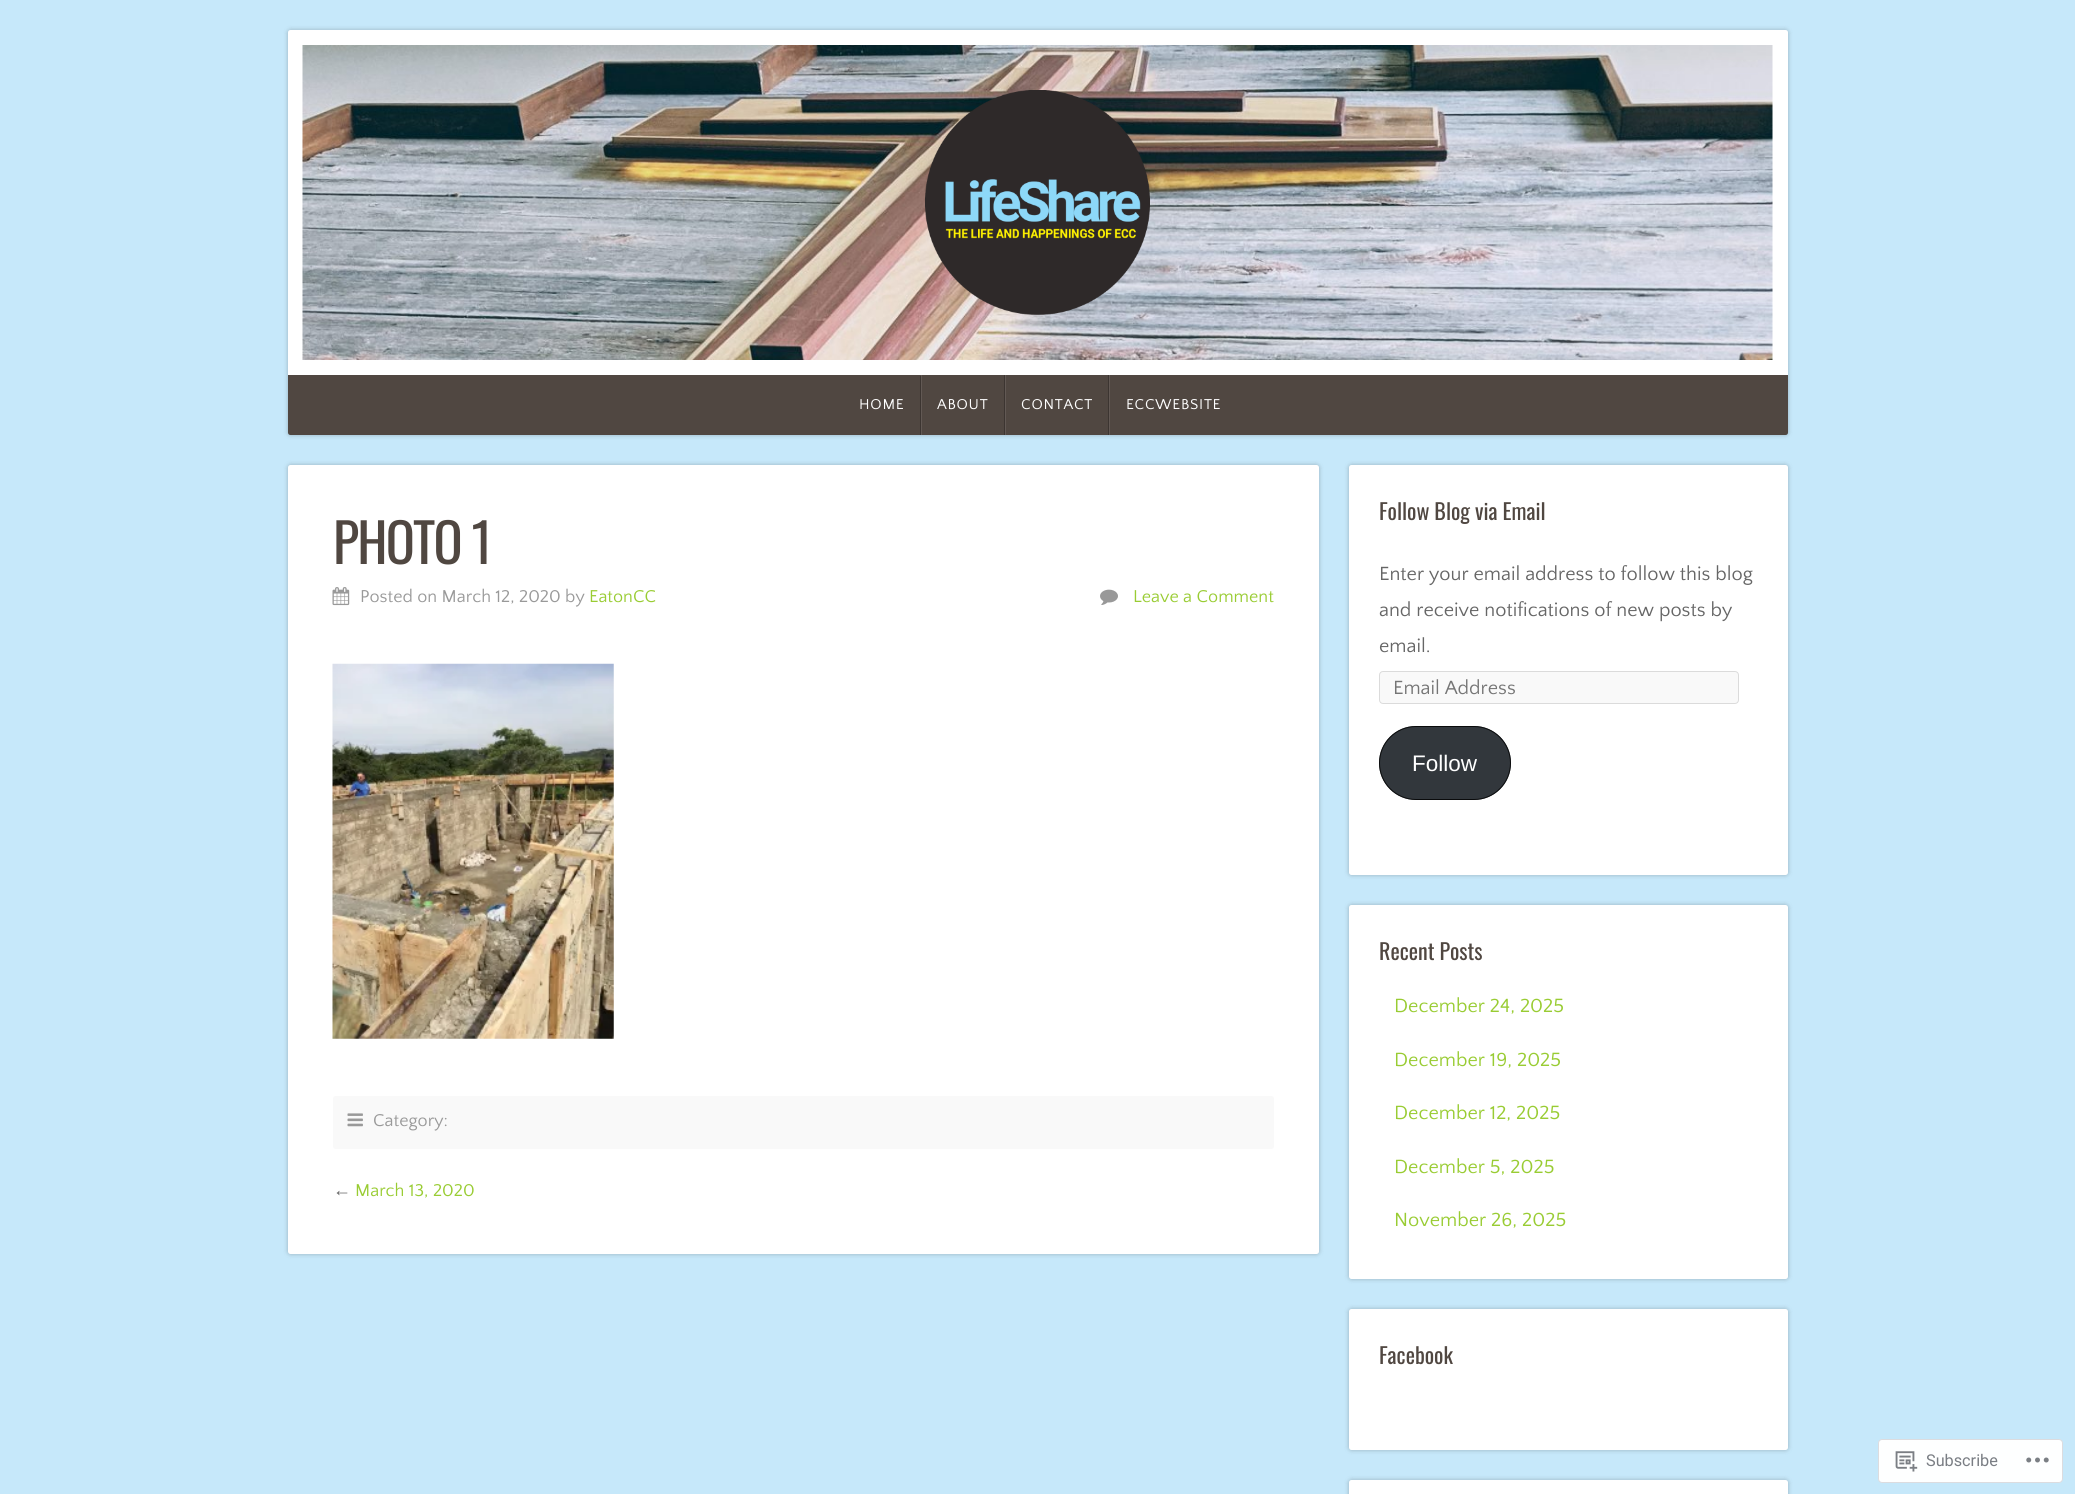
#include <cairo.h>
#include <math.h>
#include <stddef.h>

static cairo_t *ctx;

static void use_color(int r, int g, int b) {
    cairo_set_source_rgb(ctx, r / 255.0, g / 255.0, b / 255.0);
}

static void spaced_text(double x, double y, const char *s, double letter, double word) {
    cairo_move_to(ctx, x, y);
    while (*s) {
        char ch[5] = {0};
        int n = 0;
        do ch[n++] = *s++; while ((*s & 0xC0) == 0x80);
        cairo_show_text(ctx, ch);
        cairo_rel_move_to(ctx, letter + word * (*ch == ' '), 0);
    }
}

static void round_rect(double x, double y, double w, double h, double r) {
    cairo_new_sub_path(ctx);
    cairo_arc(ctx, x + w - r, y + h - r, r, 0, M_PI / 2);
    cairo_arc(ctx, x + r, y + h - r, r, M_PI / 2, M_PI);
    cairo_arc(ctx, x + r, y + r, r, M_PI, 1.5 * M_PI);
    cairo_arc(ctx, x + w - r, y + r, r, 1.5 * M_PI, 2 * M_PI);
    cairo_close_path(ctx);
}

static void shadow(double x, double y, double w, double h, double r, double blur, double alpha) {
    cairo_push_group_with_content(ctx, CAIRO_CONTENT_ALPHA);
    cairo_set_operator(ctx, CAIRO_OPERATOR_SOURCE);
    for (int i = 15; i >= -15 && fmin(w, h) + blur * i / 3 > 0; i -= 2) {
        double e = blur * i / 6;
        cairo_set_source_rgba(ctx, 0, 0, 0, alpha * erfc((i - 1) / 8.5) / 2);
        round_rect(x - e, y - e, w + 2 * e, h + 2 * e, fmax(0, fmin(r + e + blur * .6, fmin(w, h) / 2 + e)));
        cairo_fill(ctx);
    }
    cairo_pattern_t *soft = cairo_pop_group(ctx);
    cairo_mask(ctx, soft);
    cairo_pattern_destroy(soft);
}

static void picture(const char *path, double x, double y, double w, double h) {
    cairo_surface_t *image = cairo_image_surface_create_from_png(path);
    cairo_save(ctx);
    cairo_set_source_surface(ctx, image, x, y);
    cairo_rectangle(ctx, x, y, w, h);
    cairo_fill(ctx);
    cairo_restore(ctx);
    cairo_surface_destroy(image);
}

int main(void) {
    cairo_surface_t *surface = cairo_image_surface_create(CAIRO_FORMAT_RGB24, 2075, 1494);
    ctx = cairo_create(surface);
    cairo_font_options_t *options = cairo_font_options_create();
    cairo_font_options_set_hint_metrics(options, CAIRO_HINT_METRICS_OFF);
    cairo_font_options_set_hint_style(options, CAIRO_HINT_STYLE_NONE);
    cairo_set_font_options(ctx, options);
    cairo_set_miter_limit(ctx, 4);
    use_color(198, 232, 250);
    cairo_paint(ctx);
    use_color(0, 0, 0);
    shadow(288, 30, 1500, 405, 2.5, 2.5, 0.24);
    use_color(255, 255, 255);
    cairo_new_path(ctx);
    cairo_move_to(ctx, 290.5, 30);
    cairo_line_to(ctx, 1785.5, 30);
    cairo_curve_to(ctx, 1787, 30, 1788, 31, 1788, 32.5);
    cairo_line_to(ctx, 1788, 375);
    cairo_line_to(ctx, 288, 375);
    cairo_line_to(ctx, 288, 32.5);
    cairo_curve_to(ctx, 288, 31, 289, 30, 290.5, 30);
    cairo_close_path(ctx);
    cairo_fill(ctx);
    picture("img1.png", 302, 45, 1471, 315);
    picture("img2.png", 925, 90, 225, 225);
    use_color(80, 71, 65);
    cairo_new_path(ctx);
    cairo_move_to(ctx, 288, 375);
    cairo_line_to(ctx, 1788, 375);
    cairo_line_to(ctx, 1788, 432.5);
    cairo_curve_to(ctx, 1788, 434, 1787, 435, 1785.5, 435);
    cairo_line_to(ctx, 290.5, 435);
    cairo_curve_to(ctx, 289, 435, 288, 434, 288, 432.5);
    cairo_close_path(ctx);
    cairo_fill(ctx);
    use_color(60, 53, 49);
    cairo_rectangle(ctx, 920, 376, 1, 59);
    cairo_fill(ctx);
    cairo_select_font_face(ctx, "Quattrocento Sans", CAIRO_FONT_SLANT_NORMAL, CAIRO_FONT_WEIGHT_NORMAL);
    cairo_set_font_size(ctx, 15);
    use_color(255, 255, 255);
    spaced_text(859, 409, "HOME", 0.75, 0);
    use_color(60, 53, 49);
    cairo_rectangle(ctx, 1004, 375, 1, 60);
    cairo_fill(ctx);
    use_color(98, 89, 84);
    cairo_rectangle(ctx, 921, 375, 1, 60);
    cairo_fill(ctx);
    use_color(255, 255, 255);
    spaced_text(937, 409, "ABOUT", 0.75, 0);
    use_color(60, 53, 49);
    cairo_rectangle(ctx, 1108, 375, 1, 60);
    cairo_fill(ctx);
    use_color(98, 89, 84);
    cairo_rectangle(ctx, 1005, 375, 1, 60);
    cairo_fill(ctx);
    use_color(255, 255, 255);
    spaced_text(1021, 409, "CONTACT", 0.75, 0);
    use_color(98, 89, 84);
    cairo_rectangle(ctx, 1109, 375, 1, 60);
    cairo_fill(ctx);
    use_color(255, 255, 255);
    spaced_text(1126, 409, "ECCWEBSITE", 0.75, 0);
    use_color(0, 0, 0);
    shadow(288, 465, 1031, 789, 2.5, 2.5, 0.24);
    use_color(255, 255, 255);
    round_rect(288, 465, 1031, 789, 2.5);
    cairo_fill(ctx);
    cairo_select_font_face(ctx, "Oswald", CAIRO_FONT_SLANT_NORMAL, CAIRO_FONT_WEIGHT_NORMAL);
    cairo_set_font_size(ctx, 54);
    use_color(80, 71, 65);
    spaced_text(333, 564, "PHOTO 1", -1.75, 0);
    picture("img3.png", 332, 587, 18, 19);
    cairo_select_font_face(ctx, "Quattrocento Sans", CAIRO_FONT_SLANT_NORMAL, CAIRO_FONT_WEIGHT_NORMAL);
    cairo_set_font_size(ctx, 18);
    use_color(153, 153, 153);
    cairo_move_to(ctx, 360, 602);
    cairo_show_text(ctx, "Posted on March 12, 2020 by");
    use_color(153, 204, 51);
    cairo_move_to(ctx, 589, 602);
    cairo_show_text(ctx, "EatonCC");
    picture("img4.png", 1100, 589, 18, 16);
    cairo_move_to(ctx, 1133, 602);
    cairo_show_text(ctx, "Leave a Comment");
    picture("img5.png", 332, 663, 282, 376);
    use_color(249, 249, 249);
    round_rect(333, 1096, 941, 53, 2.5);
    cairo_fill(ctx);
    picture("img6.png", 347, 1113, 16, 14);
    use_color(153, 153, 153);
    cairo_move_to(ctx, 373, 1126);
    cairo_show_text(ctx, "Category:");
    cairo_select_font_face(ctx, "Liberation Sans", CAIRO_FONT_SLANT_NORMAL, CAIRO_FONT_WEIGHT_NORMAL);
    use_color(102, 102, 102);
    cairo_move_to(ctx, 333, 1196);
    cairo_show_text(ctx, "←");
    cairo_select_font_face(ctx, "Quattrocento Sans", CAIRO_FONT_SLANT_NORMAL, CAIRO_FONT_WEIGHT_NORMAL);
    use_color(153, 204, 51);
    cairo_move_to(ctx, 355, 1196);
    cairo_show_text(ctx, "March 13, 2020");
    use_color(0, 0, 0);
    shadow(1349, 465, 439, 410, 2.5, 2.5, 0.24);
    use_color(255, 255, 255);
    round_rect(1349, 465, 439, 410, 2.5);
    cairo_fill(ctx);
    cairo_select_font_face(ctx, "Oswald", CAIRO_FONT_SLANT_NORMAL, CAIRO_FONT_WEIGHT_NORMAL);
    cairo_set_font_size(ctx, 22);
    use_color(80, 71, 65);
    cairo_move_to(ctx, 1379, 520);
    cairo_show_text(ctx, "Follow Blog via Email");
    cairo_select_font_face(ctx, "Quattrocento Sans", CAIRO_FONT_SLANT_NORMAL, CAIRO_FONT_WEIGHT_NORMAL);
    cairo_set_font_size(ctx, 20);
    use_color(102, 102, 102);
    cairo_move_to(ctx, 1379, 580);
    cairo_show_text(ctx, "Enter your email address to follow this blog");
    cairo_move_to(ctx, 1379, 616);
    cairo_show_text(ctx, "and receive notifications of new posts by");
    cairo_move_to(ctx, 1379, 652);
    cairo_show_text(ctx, "email.");
    use_color(249, 249, 249);
    round_rect(1379.5, 671.5, 359, 32, 3.5);
    cairo_fill_preserve(ctx);
    use_color(219, 219, 219);
    cairo_set_line_width(ctx, 1);
    cairo_stroke(ctx);
    use_color(117, 117, 117);
    cairo_move_to(ctx, 1393, 694);
    cairo_show_text(ctx, "Email Address");
    use_color(50, 55, 60);
    round_rect(1379, 726, 132, 74, 37);
    cairo_fill(ctx);
    round_rect(1379.5, 726.5, 131, 73, 36.5);
    cairo_set_source_rgba(ctx, 0, 0, 0, 0.8);
    cairo_stroke(ctx);
    cairo_select_font_face(ctx, "Liberation Sans", CAIRO_FONT_SLANT_NORMAL, CAIRO_FONT_WEIGHT_NORMAL);
    cairo_set_font_size(ctx, 22.5);
    use_color(255, 255, 255);
    cairo_move_to(ctx, 1412, 771);
    cairo_show_text(ctx, "Follow");
    use_color(0, 0, 0);
    shadow(1349, 905, 439, 374, 2.5, 2.5, 0.24);
    use_color(255, 255, 255);
    round_rect(1349, 905, 439, 374, 2.5);
    cairo_fill(ctx);
    cairo_select_font_face(ctx, "Oswald", CAIRO_FONT_SLANT_NORMAL, CAIRO_FONT_WEIGHT_NORMAL);
    cairo_set_font_size(ctx, 22);
    use_color(80, 71, 65);
    cairo_move_to(ctx, 1379, 960);
    cairo_show_text(ctx, "Recent Posts");
    cairo_select_font_face(ctx, "Quattrocento Sans", CAIRO_FONT_SLANT_NORMAL, CAIRO_FONT_WEIGHT_NORMAL);
    cairo_set_font_size(ctx, 20);
    use_color(153, 204, 51);
    cairo_move_to(ctx, 1394, 1012);
    cairo_show_text(ctx, "December 24, 2025");
    cairo_move_to(ctx, 1394, 1066);
    cairo_show_text(ctx, "December 19, 2025");
    cairo_move_to(ctx, 1394, 1119);
    cairo_show_text(ctx, "December 12, 2025");
    cairo_move_to(ctx, 1394, 1173);
    cairo_show_text(ctx, "December 5, 2025");
    cairo_move_to(ctx, 1394, 1226);
    cairo_show_text(ctx, "November 26, 2025");
    use_color(0, 0, 0);
    shadow(1349, 1309, 439, 141, 2.5, 2.5, 0.24);
    use_color(255, 255, 255);
    round_rect(1349, 1309, 439, 141, 2.5);
    cairo_fill(ctx);
    cairo_select_font_face(ctx, "Oswald", CAIRO_FONT_SLANT_NORMAL, CAIRO_FONT_WEIGHT_NORMAL);
    cairo_set_font_size(ctx, 22);
    use_color(80, 71, 65);
    cairo_move_to(ctx, 1379, 1364);
    cairo_show_text(ctx, "Facebook");
    use_color(0, 0, 0);
    shadow(1349, 1480, 439, 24, 2.5, 2.5, 0.24);
    use_color(255, 255, 255);
    round_rect(1349, 1480, 439, 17, 2.5);
    cairo_fill(ctx);
    use_color(254, 255, 255);
    round_rect(1878.5, 1439.5, 184, 43, 3.5);
    cairo_fill_preserve(ctx);
    use_color(220, 220, 223);
    cairo_stroke(ctx);
    picture("img7.png", 1895, 1451, 23, 21);
    cairo_select_font_face(ctx, "Roboto", CAIRO_FONT_SLANT_NORMAL, CAIRO_FONT_WEIGHT_NORMAL);
    cairo_set_font_size(ctx, 16.25);
    use_color(122, 126, 132);
    cairo_move_to(ctx, 1926, 1466);
    cairo_show_text(ctx, "Subscribe");
    picture("img8.png", 2026, 1457, 23, 6);
    cairo_surface_write_to_png(surface, "result.png");
    cairo_font_options_destroy(options);
    cairo_destroy(ctx);
    cairo_surface_destroy(surface);
    return 0;
}
